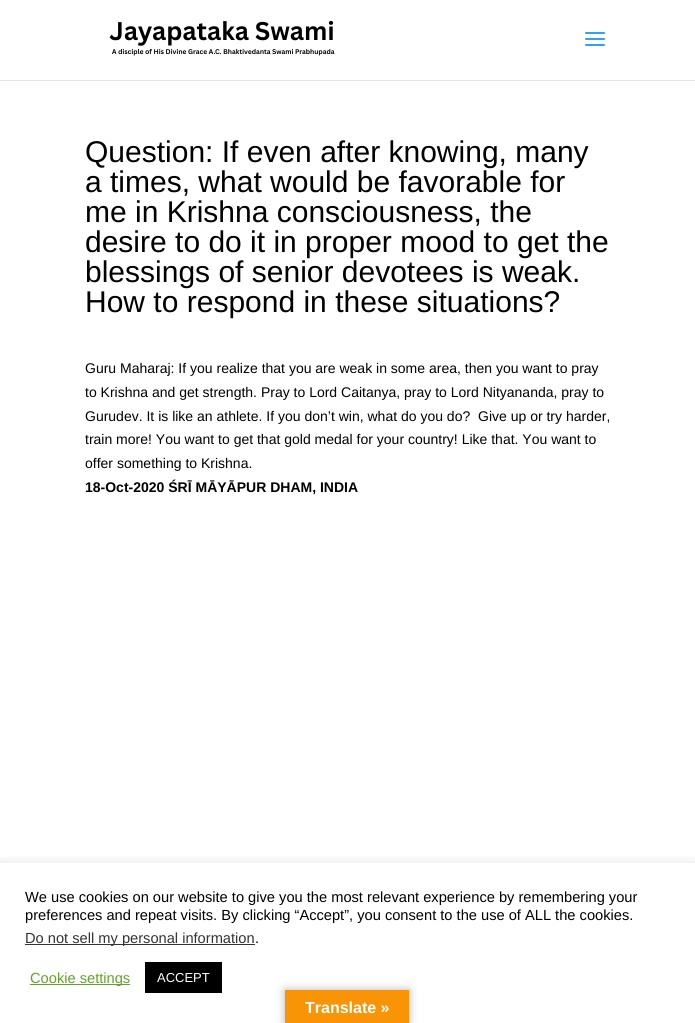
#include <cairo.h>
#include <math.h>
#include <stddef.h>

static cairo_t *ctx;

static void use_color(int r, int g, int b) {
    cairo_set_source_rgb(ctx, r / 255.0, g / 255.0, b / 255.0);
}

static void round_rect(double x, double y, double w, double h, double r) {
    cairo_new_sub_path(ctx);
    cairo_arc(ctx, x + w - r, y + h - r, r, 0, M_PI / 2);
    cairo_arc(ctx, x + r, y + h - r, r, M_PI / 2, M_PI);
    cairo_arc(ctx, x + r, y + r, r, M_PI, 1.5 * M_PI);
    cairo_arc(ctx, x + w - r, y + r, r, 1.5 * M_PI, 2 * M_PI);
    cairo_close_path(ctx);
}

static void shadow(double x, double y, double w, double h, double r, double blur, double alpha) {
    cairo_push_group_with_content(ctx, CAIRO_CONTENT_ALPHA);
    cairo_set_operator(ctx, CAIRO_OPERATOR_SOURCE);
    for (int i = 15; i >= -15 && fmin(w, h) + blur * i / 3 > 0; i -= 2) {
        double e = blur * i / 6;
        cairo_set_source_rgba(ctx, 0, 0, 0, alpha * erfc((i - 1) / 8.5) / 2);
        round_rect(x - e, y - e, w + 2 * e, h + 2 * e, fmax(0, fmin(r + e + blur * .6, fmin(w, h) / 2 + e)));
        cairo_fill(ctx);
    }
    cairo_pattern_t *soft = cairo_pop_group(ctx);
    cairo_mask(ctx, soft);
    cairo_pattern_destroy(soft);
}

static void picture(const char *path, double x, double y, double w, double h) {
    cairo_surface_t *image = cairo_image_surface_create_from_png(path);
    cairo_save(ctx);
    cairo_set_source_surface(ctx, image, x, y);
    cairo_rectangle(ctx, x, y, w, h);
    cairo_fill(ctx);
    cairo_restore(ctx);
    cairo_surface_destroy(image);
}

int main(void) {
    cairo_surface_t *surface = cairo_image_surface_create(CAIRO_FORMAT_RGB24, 695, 1023);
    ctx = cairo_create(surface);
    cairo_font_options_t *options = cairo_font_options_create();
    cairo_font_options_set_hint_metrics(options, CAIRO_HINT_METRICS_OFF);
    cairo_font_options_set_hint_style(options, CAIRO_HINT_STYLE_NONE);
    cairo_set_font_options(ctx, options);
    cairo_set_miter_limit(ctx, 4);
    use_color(255, 255, 255);
    cairo_paint(ctx);
    use_color(230, 230, 230);
    cairo_rectangle(ctx, 0, 80, 695, 1);
    cairo_fill(ctx);
    picture("img1.png", 109, 20, 226, 36);
    picture("img2.png", 585, 32, 20, 14);
    cairo_select_font_face(ctx, "Liberation Sans", CAIRO_FONT_SLANT_NORMAL, CAIRO_FONT_WEIGHT_NORMAL);
    cairo_set_font_size(ctx, 30);
    use_color(0, 0, 0);
    cairo_move_to(ctx, 85, 162);
    cairo_show_text(ctx, "Question: If even after knowing, many");
    cairo_move_to(ctx, 85, 192);
    cairo_show_text(ctx, "a times, what would be favorable for");
    cairo_move_to(ctx, 85, 222);
    cairo_show_text(ctx, "me in Krishna consciousness, the");
    cairo_move_to(ctx, 85, 252);
    cairo_show_text(ctx, "desire to do it in proper mood to get the");
    cairo_move_to(ctx, 85, 282);
    cairo_show_text(ctx, "blessings of senior devotees is weak.");
    cairo_move_to(ctx, 85, 312);
    cairo_show_text(ctx, "How to respond in these situations?");
    cairo_set_font_size(ctx, 14);
    cairo_move_to(ctx, 85, 373);
    cairo_show_text(ctx, "Guru Maharaj: If you realize that you are weak in some area, then you want to pray");
    cairo_move_to(ctx, 85, 397);
    cairo_show_text(ctx, "to Krishna and get strength. Pray to Lord Caitanya, pray to Lord Nityananda, pray to");
    cairo_move_to(ctx, 85, 421);
    cairo_show_text(ctx, "Gurudev. It is like an athlete. If you don’t win, what do you do?  Give up or try harder,");
    cairo_move_to(ctx, 85, 444);
    cairo_show_text(ctx, "train more! You want to get that gold medal for your country! Like that. You want to");
    cairo_move_to(ctx, 85, 468);
    cairo_show_text(ctx, "offer something to Krishna.");
    cairo_select_font_face(ctx, "Liberation Sans", CAIRO_FONT_SLANT_NORMAL, CAIRO_FONT_WEIGHT_BOLD);
    cairo_move_to(ctx, 85, 492);
    cairo_show_text(ctx, "18-Oct-2020 ŚRĪ MĀYĀPUR DHAM, INDIA");
    cairo_save(ctx);
    cairo_rectangle(ctx, 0, 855, 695, 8);
    cairo_clip(ctx);
    use_color(172, 171, 171);
    shadow(0, 862, 695, 160, 0, 5, 0.3);
    cairo_restore(ctx);
    cairo_select_font_face(ctx, "Liberation Sans", CAIRO_FONT_SLANT_NORMAL, CAIRO_FONT_WEIGHT_NORMAL);
    cairo_set_font_size(ctx, 14.65);
    cairo_move_to(ctx, 25, 902);
    cairo_show_text(ctx, "We use cookies on our website to give you the most relevant experience by remembering your");
    cairo_move_to(ctx, 25, 920);
    cairo_show_text(ctx, "preferences and repeat visits. By clicking “Accept”, you consent to the use of ALL the cookies.");
    use_color(51, 51, 51);
    cairo_rectangle(ctx, 25, 944, 230, 1);
    cairo_fill(ctx);
    cairo_move_to(ctx, 25, 943);
    cairo_show_text(ctx, "Do not sell my personal information");
    use_color(0, 0, 0);
    cairo_move_to(ctx, 255, 943);
    cairo_show_text(ctx, ".");
    use_color(98, 163, 41);
    cairo_rectangle(ctx, 30, 984, 100, 1);
    cairo_fill(ctx);
    cairo_move_to(ctx, 30, 983);
    cairo_show_text(ctx, "Cookie settings");
    use_color(0, 0, 0);
    cairo_rectangle(ctx, 145, 962, 77, 31);
    cairo_fill(ctx);
    cairo_set_font_size(ctx, 13);
    use_color(255, 255, 255);
    cairo_move_to(ctx, 157, 982);
    cairo_show_text(ctx, "ACCEPT");
    use_color(0, 0, 0);
    shadow(285, 990, 124, 33, 0, 4.5, 0.3);
    use_color(248, 148, 6);
    cairo_rectangle(ctx, 285, 990, 124, 33);
    cairo_fill(ctx);
    cairo_select_font_face(ctx, "Liberation Sans", CAIRO_FONT_SLANT_NORMAL, CAIRO_FONT_WEIGHT_BOLD);
    cairo_set_font_size(ctx, 16);
    use_color(255, 255, 255);
    cairo_move_to(ctx, 305, 1013);
    cairo_show_text(ctx, "Translate »");
    cairo_surface_write_to_png(surface, "result.png");
    cairo_font_options_destroy(options);
    cairo_destroy(ctx);
    cairo_surface_destroy(surface);
    return 0;
}
